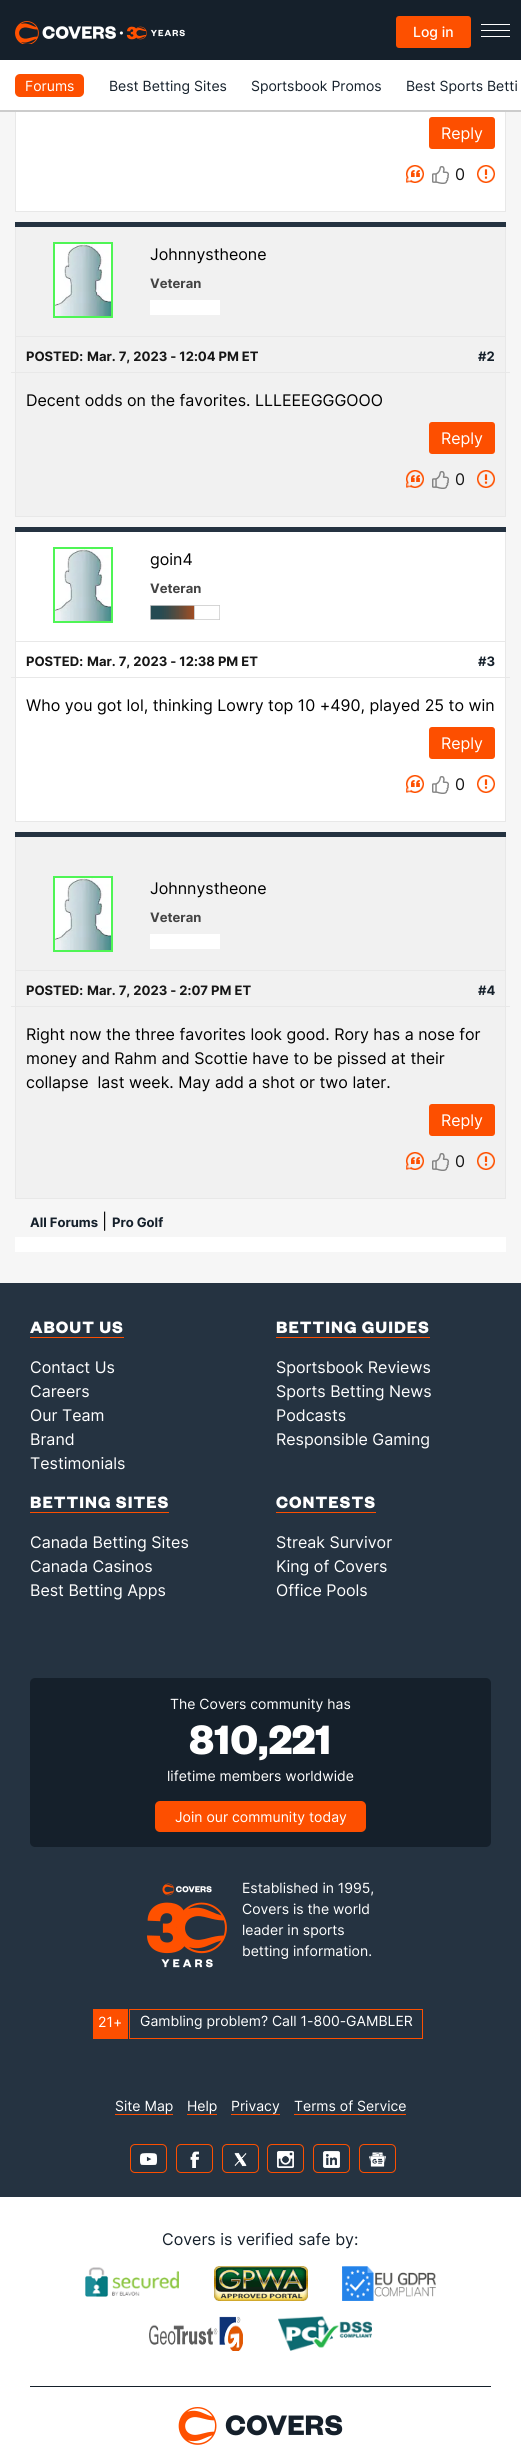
#include <cairo.h>
#include <math.h>
#include <stddef.h>

static cairo_t *ctx;

static void use_color(int r, int g, int b) {
    cairo_set_source_rgb(ctx, r / 255.0, g / 255.0, b / 255.0);
}

static void spaced_text(double x, double y, const char *s, double letter, double word) {
    cairo_move_to(ctx, x, y);
    while (*s) {
        char ch[5] = {0};
        int n = 0;
        do ch[n++] = *s++; while ((*s & 0xC0) == 0x80);
        cairo_show_text(ctx, ch);
        cairo_rel_move_to(ctx, letter + word * (*ch == ' '), 0);
    }
}

static void round_rect(double x, double y, double w, double h, double r) {
    cairo_new_sub_path(ctx);
    cairo_arc(ctx, x + w - r, y + h - r, r, 0, M_PI / 2);
    cairo_arc(ctx, x + r, y + h - r, r, M_PI / 2, M_PI);
    cairo_arc(ctx, x + r, y + r, r, M_PI, 1.5 * M_PI);
    cairo_arc(ctx, x + w - r, y + r, r, 1.5 * M_PI, 2 * M_PI);
    cairo_close_path(ctx);
}

static void picture(const char *path, double x, double y, double w, double h) {
    cairo_surface_t *image = cairo_image_surface_create_from_png(path);
    cairo_save(ctx);
    cairo_set_source_surface(ctx, image, x, y);
    cairo_rectangle(ctx, x, y, w, h);
    cairo_fill(ctx);
    cairo_restore(ctx);
    cairo_surface_destroy(image);
}

int main(void) {
    cairo_surface_t *surface = cairo_image_surface_create(CAIRO_FORMAT_RGB24, 521, 2450);
    ctx = cairo_create(surface);
    cairo_font_options_t *options = cairo_font_options_create();
    cairo_font_options_set_hint_metrics(options, CAIRO_HINT_METRICS_OFF);
    cairo_font_options_set_hint_style(options, CAIRO_HINT_STYLE_NONE);
    cairo_set_font_options(ctx, options);
    cairo_set_miter_limit(ctx, 4);
    use_color(246, 246, 246);
    cairo_paint(ctx);
    use_color(21, 32, 43);
    cairo_rectangle(ctx, 0, 0, 521, 60);
    cairo_fill(ctx);
    picture("img1.png", 15, 21, 170, 23);
    use_color(253, 80, 0);
    round_rect(396, 16, 75, 32, 3);
    cairo_fill(ctx);
    cairo_select_font_face(ctx, "Inter Medium", CAIRO_FONT_SLANT_NORMAL, CAIRO_FONT_WEIGHT_NORMAL);
    cairo_set_font_size(ctx, 14);
    use_color(255, 255, 255);
    cairo_move_to(ctx, 413, 37);
    cairo_show_text(ctx, "Log in");
    cairo_rectangle(ctx, 481, 24, 29, 1);
    cairo_fill(ctx);
    cairo_rectangle(ctx, 481, 30, 29, 1);
    cairo_fill(ctx);
    cairo_rectangle(ctx, 481, 36, 29, 1);
    cairo_fill(ctx);
    cairo_rectangle(ctx, 0, 60, 521, 50);
    cairo_fill(ctx);
    use_color(204, 204, 204);
    cairo_rectangle(ctx, 0, 110, 521, 2);
    cairo_fill(ctx);
    use_color(253, 79, 0);
    round_rect(15, 74, 69, 23, 5);
    cairo_fill(ctx);
    cairo_select_font_face(ctx, "Inter", CAIRO_FONT_SLANT_NORMAL, CAIRO_FONT_WEIGHT_NORMAL);
    use_color(255, 255, 255);
    cairo_move_to(ctx, 25, 91);
    cairo_show_text(ctx, "Forums");
    use_color(21, 32, 43);
    cairo_move_to(ctx, 109, 91);
    cairo_show_text(ctx, "Best Betting Sites");
    cairo_move_to(ctx, 251, 91);
    cairo_show_text(ctx, "Sportsbook Promos");
    cairo_move_to(ctx, 406, 91);
    cairo_show_text(ctx, "Best Sports Betti");
    use_color(255, 255, 255);
    cairo_rectangle(ctx, 16, 112, 489, 99);
    cairo_fill(ctx);
    use_color(232, 232, 232);
    cairo_rectangle(ctx, 505, 112, 1, 100);
    cairo_fill(ctx);
    cairo_rectangle(ctx, 15, 211, 491, 1);
    cairo_fill(ctx);
    cairo_rectangle(ctx, 15, 112, 1, 100);
    cairo_fill(ctx);
    use_color(253, 79, 0);
    round_rect(430, 118, 64, 30, 2);
    cairo_fill_preserve(ctx);
    cairo_stroke(ctx);
    cairo_set_font_size(ctx, 16);
    use_color(255, 255, 255);
    cairo_move_to(ctx, 441, 139);
    cairo_show_text(ctx, "Reply");
    picture("img2.png", 406, 165, 18, 18);
    picture("img3.png", 432, 166, 17, 18);
    use_color(22, 22, 22);
    cairo_move_to(ctx, 455, 180);
    cairo_show_text(ctx, "0");
    picture("img4.png", 477, 165, 18, 18);
    use_color(37, 51, 65);
    cairo_rectangle(ctx, 15, 222, 491, 5);
    cairo_fill(ctx);
    use_color(241, 241, 241);
    cairo_rectangle(ctx, 16, 227, 489, 289);
    cairo_fill(ctx);
    use_color(232, 232, 232);
    cairo_rectangle(ctx, 505, 227, 1, 290);
    cairo_fill(ctx);
    cairo_rectangle(ctx, 15, 516, 491, 1);
    cairo_fill(ctx);
    cairo_rectangle(ctx, 15, 227, 1, 290);
    cairo_fill(ctx);
    cairo_rectangle(ctx, 54, 243, 58, 74);
    use_color(79, 245, 85);
    cairo_stroke(ctx);
    picture("img5.png", 55, 244, 56, 72);
    use_color(0, 0, 0);
    cairo_move_to(ctx, 150, 260);
    cairo_show_text(ctx, "Johnnystheone");
    cairo_select_font_face(ctx, "Inter", CAIRO_FONT_SLANT_NORMAL, CAIRO_FONT_WEIGHT_BOLD);
    cairo_set_font_size(ctx, 13);
    use_color(68, 68, 68);
    cairo_move_to(ctx, 150, 288);
    cairo_show_text(ctx, "Veteran");
    use_color(255, 255, 255);
    cairo_rectangle(ctx, 150, 300, 70, 15);
    cairo_fill(ctx);
    use_color(232, 232, 232);
    cairo_rectangle(ctx, 16, 336, 489, 1);
    cairo_fill(ctx);
    use_color(22, 22, 22);
    cairo_move_to(ctx, 26, 361);
    cairo_show_text(ctx, "POSTED:");
    cairo_move_to(ctx, 87, 361);
    cairo_show_text(ctx, "Mar. 7, 2023 - 12:04 PM ET");
    use_color(21, 32, 43);
    cairo_move_to(ctx, 478, 361);
    cairo_show_text(ctx, "#2");
    use_color(232, 232, 232);
    cairo_rectangle(ctx, 11, 372, 499, 1);
    cairo_fill(ctx);
    cairo_select_font_face(ctx, "Inter", CAIRO_FONT_SLANT_NORMAL, CAIRO_FONT_WEIGHT_NORMAL);
    cairo_set_font_size(ctx, 16);
    use_color(0, 0, 0);
    cairo_move_to(ctx, 26, 406);
    cairo_show_text(ctx, "Decent odds on the favorites. LLLEEEGGGOOO");
    use_color(253, 79, 0);
    round_rect(430, 423, 64, 30, 2);
    cairo_fill_preserve(ctx);
    cairo_stroke(ctx);
    use_color(255, 255, 255);
    cairo_move_to(ctx, 441, 444);
    cairo_show_text(ctx, "Reply");
    picture("img6.png", 406, 470, 18, 18);
    picture("img7.png", 432, 471, 17, 18);
    use_color(22, 22, 22);
    cairo_move_to(ctx, 455, 485);
    cairo_show_text(ctx, "0");
    picture("img8.png", 477, 470, 18, 18);
    use_color(37, 51, 65);
    cairo_rectangle(ctx, 15, 527, 491, 5);
    cairo_fill(ctx);
    use_color(255, 255, 255);
    cairo_rectangle(ctx, 16, 532, 489, 289);
    cairo_fill(ctx);
    use_color(232, 232, 232);
    cairo_rectangle(ctx, 505, 532, 1, 290);
    cairo_fill(ctx);
    cairo_rectangle(ctx, 15, 821, 491, 1);
    cairo_fill(ctx);
    cairo_rectangle(ctx, 15, 532, 1, 290);
    cairo_fill(ctx);
    cairo_rectangle(ctx, 54, 548, 58, 74);
    use_color(79, 245, 85);
    cairo_stroke(ctx);
    picture("img5.png", 55, 549, 56, 72);
    use_color(0, 0, 0);
    cairo_move_to(ctx, 150, 565);
    cairo_show_text(ctx, "goin4");
    cairo_select_font_face(ctx, "Inter", CAIRO_FONT_SLANT_NORMAL, CAIRO_FONT_WEIGHT_BOLD);
    cairo_set_font_size(ctx, 13);
    use_color(68, 68, 68);
    cairo_move_to(ctx, 150, 593);
    cairo_show_text(ctx, "Veteran");
    picture("img9.png", 150, 605, 70, 15);
    use_color(232, 232, 232);
    cairo_rectangle(ctx, 16, 641, 489, 1);
    cairo_fill(ctx);
    use_color(22, 22, 22);
    cairo_move_to(ctx, 26, 666);
    cairo_show_text(ctx, "POSTED:");
    cairo_move_to(ctx, 87, 666);
    cairo_show_text(ctx, "Mar. 7, 2023 - 12:38 PM ET");
    use_color(21, 32, 43);
    cairo_move_to(ctx, 478, 666);
    cairo_show_text(ctx, "#3");
    use_color(232, 232, 232);
    cairo_rectangle(ctx, 11, 677, 499, 1);
    cairo_fill(ctx);
    cairo_select_font_face(ctx, "Inter", CAIRO_FONT_SLANT_NORMAL, CAIRO_FONT_WEIGHT_NORMAL);
    cairo_set_font_size(ctx, 16);
    use_color(0, 0, 0);
    cairo_move_to(ctx, 26, 711);
    cairo_show_text(ctx, "Who you got lol, thinking Lowry top 10 +490, played 25 to win");
    use_color(253, 79, 0);
    round_rect(430, 728, 64, 30, 2);
    cairo_fill_preserve(ctx);
    cairo_stroke(ctx);
    use_color(255, 255, 255);
    cairo_move_to(ctx, 441, 749);
    cairo_show_text(ctx, "Reply");
    picture("img2.png", 406, 775, 18, 18);
    picture("img3.png", 432, 776, 17, 18);
    use_color(22, 22, 22);
    cairo_move_to(ctx, 455, 790);
    cairo_show_text(ctx, "0");
    picture("img4.png", 477, 775, 18, 18);
    use_color(37, 51, 65);
    cairo_rectangle(ctx, 15, 832, 491, 5);
    cairo_fill(ctx);
    use_color(241, 241, 241);
    cairo_rectangle(ctx, 16, 837, 489, 361);
    cairo_fill(ctx);
    use_color(232, 232, 232);
    cairo_rectangle(ctx, 505, 837, 1, 362);
    cairo_fill(ctx);
    cairo_rectangle(ctx, 15, 1198, 491, 1);
    cairo_fill(ctx);
    cairo_rectangle(ctx, 15, 837, 1, 362);
    cairo_fill(ctx);
    cairo_rectangle(ctx, 54, 877, 58, 74);
    use_color(79, 245, 85);
    cairo_stroke(ctx);
    picture("img10.png", 55, 878, 56, 72);
    use_color(0, 0, 0);
    cairo_move_to(ctx, 150, 894);
    cairo_show_text(ctx, "Johnnystheone");
    cairo_select_font_face(ctx, "Inter", CAIRO_FONT_SLANT_NORMAL, CAIRO_FONT_WEIGHT_BOLD);
    cairo_set_font_size(ctx, 13);
    use_color(68, 68, 68);
    cairo_move_to(ctx, 150, 922);
    cairo_show_text(ctx, "Veteran");
    use_color(255, 255, 255);
    cairo_rectangle(ctx, 150, 934, 70, 15);
    cairo_fill(ctx);
    use_color(232, 232, 232);
    cairo_rectangle(ctx, 16, 970, 489, 1);
    cairo_fill(ctx);
    use_color(22, 22, 22);
    cairo_move_to(ctx, 26, 995);
    cairo_show_text(ctx, "POSTED:");
    cairo_move_to(ctx, 87, 995);
    cairo_show_text(ctx, "Mar. 7, 2023 - 2:07 PM ET");
    use_color(21, 32, 43);
    cairo_move_to(ctx, 478, 995);
    cairo_show_text(ctx, "#4");
    use_color(232, 232, 232);
    cairo_rectangle(ctx, 11, 1006, 499, 1);
    cairo_fill(ctx);
    cairo_select_font_face(ctx, "Inter", CAIRO_FONT_SLANT_NORMAL, CAIRO_FONT_WEIGHT_NORMAL);
    cairo_set_font_size(ctx, 16);
    use_color(0, 0, 0);
    cairo_move_to(ctx, 26, 1040);
    cairo_show_text(ctx, "Right now the three favorites look good. Rory has a nose for");
    cairo_move_to(ctx, 26, 1064);
    cairo_show_text(ctx, "money and Rahm and Scottie have to be pissed at their");
    cairo_move_to(ctx, 26, 1088);
    cairo_show_text(ctx, "collapse  last week. May add a shot or two later.");
    use_color(253, 79, 0);
    round_rect(430, 1105, 64, 30, 2);
    cairo_fill_preserve(ctx);
    cairo_stroke(ctx);
    use_color(255, 255, 255);
    cairo_move_to(ctx, 441, 1126);
    cairo_show_text(ctx, "Reply");
    picture("img6.png", 406, 1152, 18, 18);
    picture("img7.png", 432, 1153, 17, 18);
    use_color(22, 22, 22);
    cairo_move_to(ctx, 455, 1167);
    cairo_show_text(ctx, "0");
    picture("img8.png", 477, 1152, 18, 18);
    cairo_select_font_face(ctx, "Inter", CAIRO_FONT_SLANT_NORMAL, CAIRO_FONT_WEIGHT_BOLD);
    cairo_set_font_size(ctx, 13);
    use_color(21, 32, 43);
    cairo_move_to(ctx, 30, 1227);
    cairo_show_text(ctx, "All Forums");
    cairo_select_font_face(ctx, "Inter", CAIRO_FONT_SLANT_NORMAL, CAIRO_FONT_WEIGHT_NORMAL);
    cairo_set_font_size(ctx, 16);
    use_color(0, 0, 0);
    cairo_move_to(ctx, 102, 1227);
    cairo_show_text(ctx, "|");
    cairo_select_font_face(ctx, "Inter", CAIRO_FONT_SLANT_NORMAL, CAIRO_FONT_WEIGHT_BOLD);
    cairo_set_font_size(ctx, 13);
    use_color(21, 32, 43);
    cairo_move_to(ctx, 112, 1227);
    cairo_show_text(ctx, "Pro Golf");
    use_color(255, 255, 255);
    cairo_rectangle(ctx, 15, 1237, 491, 15);
    cairo_fill(ctx);
    use_color(37, 51, 65);
    cairo_rectangle(ctx, 0, 1283, 521, 914);
    cairo_fill(ctx);
    cairo_select_font_face(ctx, "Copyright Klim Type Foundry", CAIRO_FONT_SLANT_NORMAL, CAIRO_FONT_WEIGHT_BOLD);
    cairo_set_font_size(ctx, 18);
    use_color(255, 255, 255);
    spaced_text(30, 1333, "ABOUT US", 1, 0);
    use_color(253, 79, 0);
    cairo_rectangle(ctx, 30, 1337, 94, 1);
    cairo_fill(ctx);
    cairo_select_font_face(ctx, "Inter", CAIRO_FONT_SLANT_NORMAL, CAIRO_FONT_WEIGHT_NORMAL);
    cairo_set_font_size(ctx, 16);
    use_color(255, 255, 255);
    cairo_move_to(ctx, 30, 1373);
    cairo_show_text(ctx, "Contact Us");
    cairo_move_to(ctx, 30, 1397);
    cairo_show_text(ctx, "Careers");
    cairo_move_to(ctx, 30, 1421);
    cairo_show_text(ctx, "Our Team");
    cairo_move_to(ctx, 30, 1445);
    cairo_show_text(ctx, "Brand");
    cairo_move_to(ctx, 30, 1469);
    cairo_show_text(ctx, "Testimonials");
    cairo_select_font_face(ctx, "Copyright Klim Type Foundry", CAIRO_FONT_SLANT_NORMAL, CAIRO_FONT_WEIGHT_BOLD);
    cairo_set_font_size(ctx, 18);
    spaced_text(276, 1333, "BETTING GUIDES", 1, 0);
    use_color(253, 79, 0);
    cairo_rectangle(ctx, 276, 1337, 154, 1);
    cairo_fill(ctx);
    cairo_select_font_face(ctx, "Inter", CAIRO_FONT_SLANT_NORMAL, CAIRO_FONT_WEIGHT_NORMAL);
    cairo_set_font_size(ctx, 16);
    use_color(255, 255, 255);
    cairo_move_to(ctx, 276, 1373);
    cairo_show_text(ctx, "Sportsbook Reviews");
    cairo_move_to(ctx, 276, 1397);
    cairo_show_text(ctx, "Sports Betting News");
    cairo_move_to(ctx, 276, 1421);
    cairo_show_text(ctx, "Podcasts");
    cairo_move_to(ctx, 276, 1445);
    cairo_show_text(ctx, "Responsible Gaming");
    cairo_select_font_face(ctx, "Copyright Klim Type Foundry", CAIRO_FONT_SLANT_NORMAL, CAIRO_FONT_WEIGHT_BOLD);
    cairo_set_font_size(ctx, 18);
    spaced_text(30, 1508, "BETTING SITES", 1, 0);
    use_color(253, 79, 0);
    cairo_rectangle(ctx, 30, 1512, 139, 1);
    cairo_fill(ctx);
    cairo_select_font_face(ctx, "Inter", CAIRO_FONT_SLANT_NORMAL, CAIRO_FONT_WEIGHT_NORMAL);
    cairo_set_font_size(ctx, 16);
    use_color(255, 255, 255);
    cairo_move_to(ctx, 30, 1548);
    cairo_show_text(ctx, "Canada Betting Sites");
    cairo_move_to(ctx, 30, 1572);
    cairo_show_text(ctx, "Canada Casinos");
    cairo_move_to(ctx, 30, 1596);
    cairo_show_text(ctx, "Best Betting Apps");
    cairo_select_font_face(ctx, "Copyright Klim Type Foundry", CAIRO_FONT_SLANT_NORMAL, CAIRO_FONT_WEIGHT_BOLD);
    cairo_set_font_size(ctx, 18);
    spaced_text(276, 1508, "CONTESTS", 1, 0);
    use_color(253, 79, 0);
    cairo_rectangle(ctx, 276, 1512, 100, 1);
    cairo_fill(ctx);
    cairo_select_font_face(ctx, "Inter", CAIRO_FONT_SLANT_NORMAL, CAIRO_FONT_WEIGHT_NORMAL);
    cairo_set_font_size(ctx, 16);
    use_color(255, 255, 255);
    cairo_move_to(ctx, 276, 1548);
    cairo_show_text(ctx, "Streak Survivor");
    cairo_move_to(ctx, 276, 1572);
    cairo_show_text(ctx, "King of Covers");
    cairo_move_to(ctx, 276, 1596);
    cairo_show_text(ctx, "Office Pools");
    use_color(21, 32, 43);
    round_rect(30, 1678, 461, 169, 5);
    cairo_fill(ctx);
    cairo_set_font_size(ctx, 14);
    use_color(255, 255, 255);
    cairo_move_to(ctx, 170, 1709);
    cairo_show_text(ctx, "The Covers community has");
    cairo_select_font_face(ctx, "Copyright Klim Type Foundry", CAIRO_FONT_SLANT_NORMAL, CAIRO_FONT_WEIGHT_BOLD);
    cairo_set_font_size(ctx, 45);
    cairo_move_to(ctx, 189, 1754);
    cairo_show_text(ctx, "810,221");
    cairo_select_font_face(ctx, "Inter", CAIRO_FONT_SLANT_NORMAL, CAIRO_FONT_WEIGHT_NORMAL);
    cairo_set_font_size(ctx, 14);
    cairo_move_to(ctx, 167, 1781);
    cairo_show_text(ctx, "lifetime members worldwide");
    use_color(253, 79, 0);
    round_rect(155, 1801, 211, 31, 5);
    cairo_fill(ctx);
    use_color(255, 255, 255);
    cairo_move_to(ctx, 175, 1822);
    cairo_show_text(ctx, "Join our community today");
    picture("img11.png", 147, 1883, 80, 85);
    cairo_move_to(ctx, 242, 1893);
    cairo_show_text(ctx, "Established in 1995,");
    cairo_move_to(ctx, 242, 1914);
    cairo_show_text(ctx, "Covers is the world");
    cairo_move_to(ctx, 242, 1935);
    cairo_show_text(ctx, "leader in sports");
    cairo_move_to(ctx, 242, 1956);
    cairo_show_text(ctx, "betting information.");
    use_color(253, 79, 0);
    cairo_rectangle(ctx, 93, 2009, 35, 30);
    cairo_fill(ctx);
    use_color(255, 255, 255);
    cairo_move_to(ctx, 98, 2027);
    cairo_show_text(ctx, "21+");
    cairo_rectangle(ctx, 129.5, 2009.5, 293, 29);
    use_color(253, 79, 0);
    cairo_set_line_width(ctx, 1);
    cairo_stroke(ctx);
    use_color(255, 255, 255);
    cairo_move_to(ctx, 140, 2026);
    cairo_show_text(ctx, "Gambling problem? Call 1-800-GAMBLER");
    cairo_move_to(ctx, 115, 2111);
    cairo_show_text(ctx, "Site Map");
    use_color(253, 79, 0);
    cairo_rectangle(ctx, 115, 2114, 58, 1);
    cairo_fill(ctx);
    use_color(255, 255, 255);
    cairo_move_to(ctx, 187, 2111);
    cairo_show_text(ctx, "Help");
    use_color(253, 79, 0);
    cairo_rectangle(ctx, 187, 2114, 30, 1);
    cairo_fill(ctx);
    use_color(255, 255, 255);
    cairo_move_to(ctx, 231, 2111);
    cairo_show_text(ctx, "Privacy");
    use_color(253, 79, 0);
    cairo_rectangle(ctx, 231, 2114, 49, 1);
    cairo_fill(ctx);
    use_color(255, 255, 255);
    cairo_move_to(ctx, 294, 2111);
    cairo_show_text(ctx, "Terms of Service");
    use_color(253, 79, 0);
    cairo_rectangle(ctx, 294, 2114, 112, 1);
    cairo_fill(ctx);
    round_rect(130.5, 2144.5, 36, 28, 4.5);
    cairo_stroke(ctx);
    round_rect(176.5, 2144.5, 36, 28, 4.5);
    cairo_stroke(ctx);
    round_rect(222.5, 2144.5, 36, 28, 4.5);
    cairo_stroke(ctx);
    round_rect(267.5, 2144.5, 36, 28, 4.5);
    cairo_stroke(ctx);
    round_rect(313.5, 2144.5, 36, 28, 4.5);
    cairo_stroke(ctx);
    round_rect(359.5, 2144.5, 36, 28, 4.5);
    cairo_stroke(ctx);
    picture("img12.png", 140, 2153, 17, 12);
    picture("img13.png", 190, 2151, 9, 17);
    picture("img14.png", 234, 2152, 13, 15);
    picture("img15.png", 277, 2151, 17, 17);
    picture("img16.png", 323, 2151, 17, 17);
    picture("img17.png", 369, 2152, 17, 15);
    use_color(255, 255, 255);
    cairo_rectangle(ctx, 0, 2197, 521, 253);
    cairo_fill(ctx);
    use_color(21, 32, 43);
    cairo_rectangle(ctx, 30, 2386, 461, 1);
    cairo_fill(ctx);
    cairo_set_font_size(ctx, 16);
    cairo_move_to(ctx, 162, 2245);
    cairo_show_text(ctx, "Covers is verified safe by:");
    picture("img18.png", 85, 2267, 94, 30);
    picture("img19.png", 214, 2266, 94, 35);
    picture("img20.png", 342, 2266, 94, 35);
    picture("img21.png", 149, 2316, 94, 35);
    picture("img22.png", 278, 2316, 94, 35);
    picture("img23.png", 178, 2407, 165, 38);
    cairo_surface_write_to_png(surface, "result.png");
    cairo_font_options_destroy(options);
    cairo_destroy(ctx);
    cairo_surface_destroy(surface);
    return 0;
}
